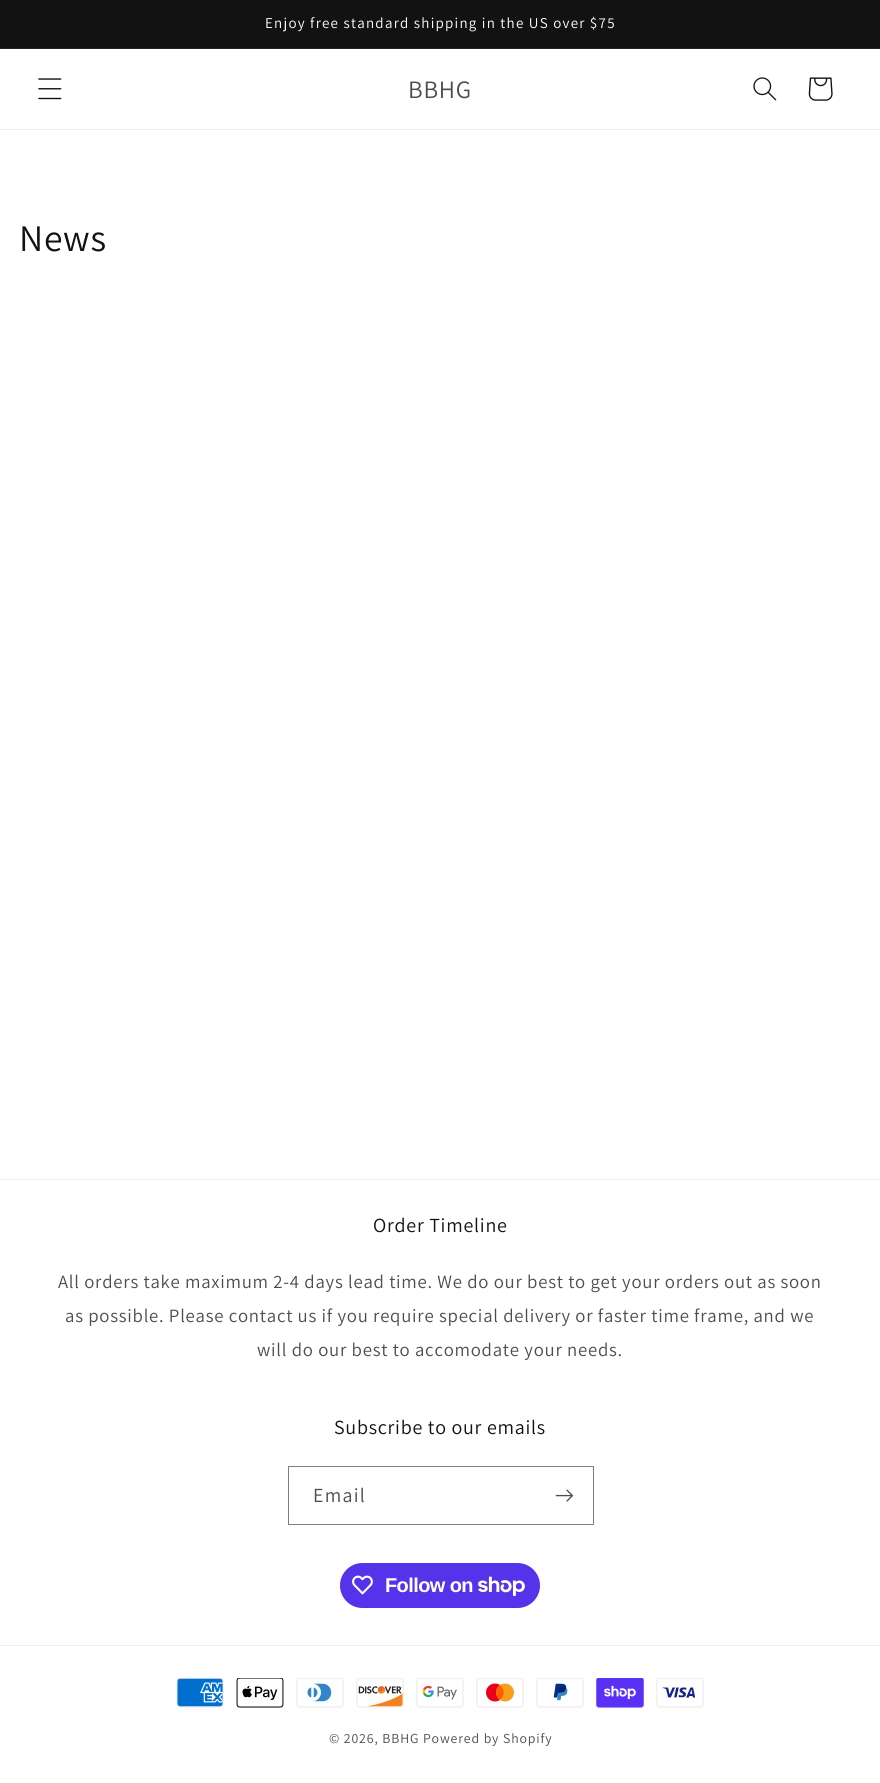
#include <cairo.h>
#include <math.h>
#include <stddef.h>

static cairo_t *ctx;

static void use_color(int r, int g, int b) {
    cairo_set_source_rgb(ctx, r / 255.0, g / 255.0, b / 255.0);
}

static void spaced_text(double x, double y, const char *s, double letter, double word) {
    cairo_move_to(ctx, x, y);
    while (*s) {
        char ch[5] = {0};
        int n = 0;
        do ch[n++] = *s++; while ((*s & 0xC0) == 0x80);
        cairo_show_text(ctx, ch);
        cairo_rel_move_to(ctx, letter + word * (*ch == ' '), 0);
    }
}

static void round_rect(double x, double y, double w, double h, double r) {
    cairo_new_sub_path(ctx);
    cairo_arc(ctx, x + w - r, y + h - r, r, 0, M_PI / 2);
    cairo_arc(ctx, x + r, y + h - r, r, M_PI / 2, M_PI);
    cairo_arc(ctx, x + r, y + r, r, M_PI, 1.5 * M_PI);
    cairo_arc(ctx, x + w - r, y + r, r, 1.5 * M_PI, 2 * M_PI);
    cairo_close_path(ctx);
}

static void picture(const char *path, double x, double y, double w, double h) {
    cairo_surface_t *image = cairo_image_surface_create_from_png(path);
    cairo_save(ctx);
    cairo_set_source_surface(ctx, image, x, y);
    cairo_rectangle(ctx, x, y, w, h);
    cairo_fill(ctx);
    cairo_restore(ctx);
    cairo_surface_destroy(image);
}

int main(void) {
    cairo_surface_t *surface = cairo_image_surface_create(CAIRO_FORMAT_RGB24, 880, 1783);
    ctx = cairo_create(surface);
    cairo_font_options_t *options = cairo_font_options_create();
    cairo_font_options_set_hint_metrics(options, CAIRO_HINT_METRICS_OFF);
    cairo_font_options_set_hint_style(options, CAIRO_HINT_STYLE_NONE);
    cairo_set_font_options(ctx, options);
    cairo_set_miter_limit(ctx, 4);
    use_color(255, 255, 255);
    cairo_paint(ctx);
    use_color(18, 18, 18);
    cairo_rectangle(ctx, 0, 0, 880, 48);
    cairo_fill(ctx);
    use_color(37, 37, 37);
    cairo_rectangle(ctx, 0, 48, 880, 1);
    cairo_fill(ctx);
    cairo_select_font_face(ctx, "Assistant", CAIRO_FONT_SLANT_NORMAL, CAIRO_FONT_WEIGHT_NORMAL);
    cairo_set_font_size(ctx, 15);
    use_color(255, 255, 255);
    spaced_text(265, 28, "Enjoy free standard shipping in the US over $75", 1.25, 0);
    use_color(236, 236, 236);
    cairo_rectangle(ctx, 0, 129, 880, 1);
    cairo_fill(ctx);
    picture("img1.png", 38, 78, 24, 22);
    cairo_set_font_size(ctx, 25);
    use_color(77, 77, 77);
    spaced_text(408, 98, "BBHG", 0.75, 0);
    picture("img2.png", 753, 77, 24, 24);
    picture("img3.png", 808, 77, 25, 24);
    cairo_set_font_size(ctx, 37.5);
    use_color(18, 18, 18);
    spaced_text(19, 251, "News", 0.75, 0);
    use_color(236, 236, 236);
    cairo_rectangle(ctx, 0, 1179, 880, 1);
    cairo_fill(ctx);
    cairo_set_font_size(ctx, 20);
    use_color(18, 18, 18);
    spaced_text(373, 1232, "Order Timeline", 0.75, 0);
    cairo_set_font_size(ctx, 18.75);
    use_color(77, 77, 77);
    spaced_text(58, 1288, "All orders take maximum 2-4 days lead time. We do our best to get your orders out as soon", 0.75, 0);
    spaced_text(65, 1322, "as possible. Please contact us if you require special delivery or faster time frame, and we", 0.75, 0);
    spaced_text(257, 1356, "will do our best to accomodate your needs.", 0.75, 0);
    cairo_set_font_size(ctx, 20);
    use_color(18, 18, 18);
    spaced_text(334, 1434, "Subscribe to our emails", 0.75, 0);
    cairo_rectangle(ctx, 288.5, 1466.5, 305, 58);
    use_color(125, 125, 125);
    cairo_set_line_width(ctx, 1);
    cairo_stroke(ctx);
    use_color(77, 77, 77);
    spaced_text(313, 1502, "Email", 1.25, 0);
    picture("img4.png", 555, 1489, 18, 13);
    use_color(84, 51, 235);
    round_rect(340, 1563, 200, 45, 22.5);
    cairo_fill(ctx);
    picture("img5.png", 352, 1575, 21, 20);
    cairo_select_font_face(ctx, "Liberation Sans", CAIRO_FONT_SLANT_NORMAL, CAIRO_FONT_WEIGHT_BOLD);
    use_color(255, 255, 255);
    spaced_text(385, 1592, "Follow on", -0.6, 0);
    picture("img6.png", 478, 1576, 47, 20);
    use_color(236, 236, 236);
    cairo_rectangle(ctx, 0, 1645, 880, 1);
    cairo_fill(ctx);
    picture("img7.png", 176, 1678, 48, 30);
    picture("img8.png", 236, 1678, 48, 30);
    picture("img9.png", 296, 1678, 48, 30);
    picture("img10.png", 356, 1678, 48, 30);
    picture("img11.png", 416, 1678, 48, 30);
    picture("img12.png", 476, 1678, 48, 30);
    picture("img13.png", 536, 1678, 48, 30);
    picture("img14.png", 596, 1678, 48, 30);
    picture("img15.png", 656, 1678, 48, 30);
    cairo_select_font_face(ctx, "Assistant", CAIRO_FONT_SLANT_NORMAL, CAIRO_FONT_WEIGHT_NORMAL);
    cairo_set_font_size(ctx, 13.75);
    use_color(77, 77, 77);
    spaced_text(329, 1743, "© 2026, BBHG Powered by Shopify", 0.9, 0);
    cairo_surface_write_to_png(surface, "result.png");
    cairo_font_options_destroy(options);
    cairo_destroy(ctx);
    cairo_surface_destroy(surface);
    return 0;
}
